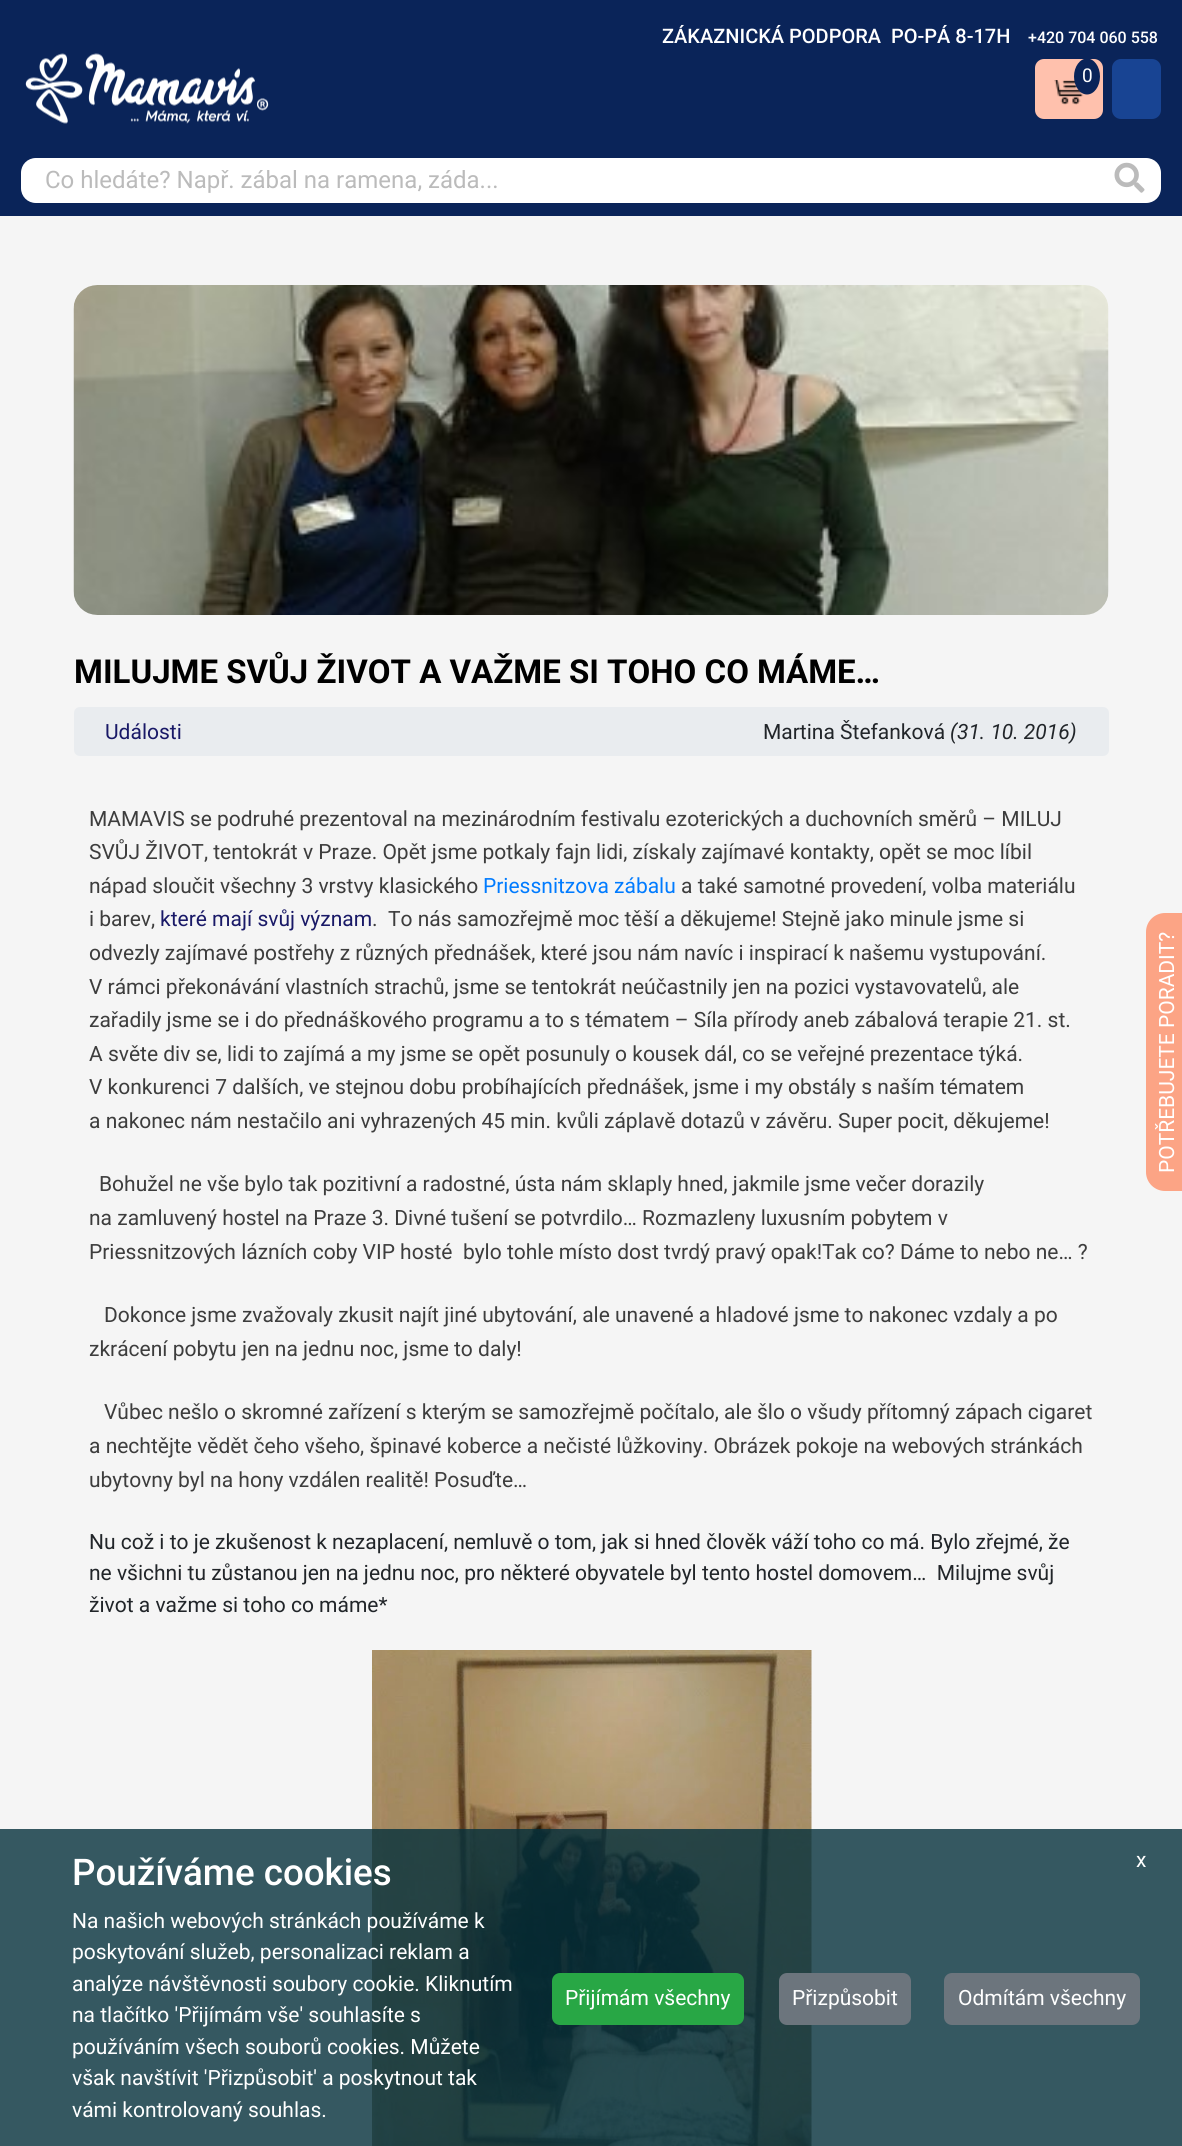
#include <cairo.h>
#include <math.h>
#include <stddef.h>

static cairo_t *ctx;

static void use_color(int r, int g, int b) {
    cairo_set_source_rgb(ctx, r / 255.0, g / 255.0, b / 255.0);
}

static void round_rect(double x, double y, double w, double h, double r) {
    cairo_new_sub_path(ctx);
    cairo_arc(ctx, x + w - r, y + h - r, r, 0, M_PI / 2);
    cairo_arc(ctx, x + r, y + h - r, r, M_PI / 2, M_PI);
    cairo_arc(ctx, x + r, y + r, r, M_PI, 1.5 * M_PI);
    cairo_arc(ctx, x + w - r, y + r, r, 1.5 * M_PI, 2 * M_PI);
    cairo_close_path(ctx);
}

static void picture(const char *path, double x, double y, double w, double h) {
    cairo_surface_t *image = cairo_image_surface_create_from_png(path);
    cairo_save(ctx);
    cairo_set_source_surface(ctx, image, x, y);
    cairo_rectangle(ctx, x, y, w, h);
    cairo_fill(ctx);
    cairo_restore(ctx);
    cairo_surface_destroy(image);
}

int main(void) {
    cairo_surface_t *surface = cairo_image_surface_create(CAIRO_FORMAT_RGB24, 1182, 2146);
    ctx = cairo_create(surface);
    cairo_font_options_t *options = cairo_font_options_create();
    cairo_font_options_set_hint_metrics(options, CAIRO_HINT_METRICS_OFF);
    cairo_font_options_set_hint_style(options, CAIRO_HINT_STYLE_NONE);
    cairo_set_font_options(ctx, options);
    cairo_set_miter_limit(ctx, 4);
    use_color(245, 245, 245);
    cairo_paint(ctx);
    use_color(10, 36, 89);
    cairo_rectangle(ctx, 0, 0, 1182, 216);
    cairo_fill(ctx);
    cairo_select_font_face(ctx, "Roboto Medium", CAIRO_FONT_SLANT_NORMAL, CAIRO_FONT_WEIGHT_NORMAL);
    cairo_set_font_size(ctx, 20);
    use_color(255, 255, 255);
    cairo_move_to(ctx, 662, 43);
    cairo_show_text(ctx, "ZÁKAZNICKÁ PODPORA  PO-PÁ 8-17H");
    cairo_set_font_size(ctx, 16);
    cairo_move_to(ctx, 1028, 43);
    cairo_show_text(ctx, "+420 704 060 558");
    picture("img1.png", 25, 53, 244, 71);
    use_color(255, 193, 173);
    round_rect(1035, 59, 68, 60, 9);
    cairo_fill(ctx);
    picture("img2.png", 1054, 80, 30, 25);
    use_color(10, 36, 89);
    cairo_new_path(ctx);
    cairo_move_to(ctx, 1087, 58.5);
    cairo_curve_to(ctx, 1094, 58.5, 1100, 66.5, 1100, 76.5);
    cairo_curve_to(ctx, 1100, 86.5, 1094, 94.5, 1087, 94.5);
    cairo_curve_to(ctx, 1080, 94.5, 1074, 86.5, 1074, 76.5);
    cairo_curve_to(ctx, 1074, 66.5, 1080, 58.5, 1087, 58.5);
    cairo_close_path(ctx);
    cairo_fill(ctx);
    cairo_select_font_face(ctx, "Roboto", CAIRO_FONT_SLANT_NORMAL, CAIRO_FONT_WEIGHT_NORMAL);
    cairo_set_font_size(ctx, 19);
    use_color(255, 255, 255);
    cairo_move_to(ctx, 1082, 82);
    cairo_show_text(ctx, "0");
    use_color(24, 68, 147);
    round_rect(1112, 59, 49, 60, 9);
    cairo_fill(ctx);
    use_color(255, 255, 255);
    cairo_new_path(ctx);
    cairo_move_to(ctx, 36, 158);
    cairo_line_to(ctx, 1098, 158);
    cairo_line_to(ctx, 1098, 203);
    cairo_line_to(ctx, 36, 203);
    cairo_curve_to(ctx, 27.5, 203, 21, 196.5, 21, 188);
    cairo_line_to(ctx, 21, 173);
    cairo_curve_to(ctx, 21, 164.5, 27.5, 158, 36, 158);
    cairo_close_path(ctx);
    cairo_fill(ctx);
    cairo_set_font_size(ctx, 24);
    use_color(187, 187, 187);
    cairo_move_to(ctx, 45, 188);
    cairo_show_text(ctx, "Co hledáte? Např. zábal na ramena, záda...");
    use_color(255, 255, 255);
    cairo_new_path(ctx);
    cairo_move_to(ctx, 1098, 158);
    cairo_line_to(ctx, 1146, 158);
    cairo_curve_to(ctx, 1154.5, 158, 1161, 164.5, 1161, 173);
    cairo_line_to(ctx, 1161, 188);
    cairo_curve_to(ctx, 1161, 196.5, 1154.5, 203, 1146, 203);
    cairo_line_to(ctx, 1098, 203);
    cairo_close_path(ctx);
    cairo_fill(ctx);
    picture("img3.png", 1114, 162, 31, 31);
    picture("img4.png", 73, 285, 1036, 330);
    cairo_select_font_face(ctx, "Roboto", CAIRO_FONT_SLANT_NORMAL, CAIRO_FONT_WEIGHT_BOLD);
    cairo_set_font_size(ctx, 33);
    use_color(0, 0, 0);
    cairo_move_to(ctx, 74, 683);
    cairo_show_text(ctx, "MILUJME SVŮJ ŽIVOT A VAŽME SI TOHO CO MÁME…");
    use_color(233, 236, 239);
    round_rect(74, 707, 1035, 49, 6);
    cairo_fill(ctx);
    cairo_select_font_face(ctx, "Roboto", CAIRO_FONT_SLANT_NORMAL, CAIRO_FONT_WEIGHT_NORMAL);
    cairo_set_font_size(ctx, 21);
    use_color(25, 25, 103);
    cairo_move_to(ctx, 105, 739);
    cairo_show_text(ctx, "Události");
    use_color(33, 37, 41);
    cairo_move_to(ctx, 763, 739);
    cairo_show_text(ctx, "Martina Štefanková");
    cairo_select_font_face(ctx, "Roboto", CAIRO_FONT_SLANT_ITALIC, CAIRO_FONT_WEIGHT_NORMAL);
    cairo_move_to(ctx, 950, 739);
    cairo_show_text(ctx, "(31. 10. 2016)");
    cairo_select_font_face(ctx, "Roboto", CAIRO_FONT_SLANT_NORMAL, CAIRO_FONT_WEIGHT_NORMAL);
    use_color(61, 61, 61);
    cairo_move_to(ctx, 89, 826);
    cairo_show_text(ctx, "MAMAVIS se podruhé prezentoval na mezinárodním festivalu ezoterických a duchovních směrů – MILUJ");
    cairo_move_to(ctx, 89, 859);
    cairo_show_text(ctx, "SVŮJ ŽIVOT, tentokrát v Praze. Opět jsme potkaly fajn lidi, získaly zajímavé kontakty, opět se moc líbil");
    cairo_move_to(ctx, 89, 893);
    cairo_show_text(ctx, "nápad sloučit všechny 3 vrstvy klasického");
    use_color(0, 123, 255);
    cairo_move_to(ctx, 483, 893);
    cairo_show_text(ctx, "Priessnitzova zábalu");
    use_color(61, 61, 61);
    cairo_move_to(ctx, 681, 893);
    cairo_show_text(ctx, "a také samotné provedení, volba materiálu");
    cairo_move_to(ctx, 89, 926);
    cairo_show_text(ctx, "i barev,");
    use_color(25, 25, 103);
    cairo_move_to(ctx, 160, 926);
    cairo_show_text(ctx, "které mají svůj význam");
    use_color(61, 61, 61);
    cairo_move_to(ctx, 372, 926);
    cairo_show_text(ctx, ".  To nás samozřejmě moc těší a děkujeme! Stejně jako minule jsme si");
    cairo_move_to(ctx, 89, 960);
    cairo_show_text(ctx, "odvezly zajímavé postřehy z různých přednášek, které jsou nám navíc i inspirací k našemu vystupování.");
    cairo_move_to(ctx, 89, 994);
    cairo_show_text(ctx, "V rámci překonávání vlastních strachů, jsme se tentokrát neúčastnily jen na pozici vystavovatelů, ale");
    cairo_move_to(ctx, 89, 1027);
    cairo_show_text(ctx, "zařadily jsme se i do přednáškového programu a to s tématem – Síla přírody aneb zábalová terapie 21. st.");
    cairo_move_to(ctx, 89, 1061);
    cairo_show_text(ctx, "A světe div se, lidi to zajímá a my jsme se opět posunuly o kousek dál, co se veřejné prezentace týká.");
    cairo_move_to(ctx, 89, 1094);
    cairo_show_text(ctx, "V konkurenci 7 dalších, ve stejnou dobu probíhajících přednášek, jsme i my obstály s naším tématem");
    cairo_move_to(ctx, 89, 1128);
    cairo_show_text(ctx, "a nakonec nám nestačilo ani vyhrazených 45 min. kvůli záplavě dotazů v závěru. Super pocit, děkujeme!");
    cairo_move_to(ctx, 99, 1191);
    cairo_show_text(ctx, "Bohužel ne vše bylo tak pozitivní a radostné, ústa nám sklaply hned, jakmile jsme večer dorazily");
    cairo_move_to(ctx, 89, 1225);
    cairo_show_text(ctx, "na zamluvený hostel na Praze 3. Divné tušení se potvrdilo… Rozmazleny luxusním pobytem v");
    cairo_move_to(ctx, 89, 1259);
    cairo_show_text(ctx, "Priessnitzových lázních coby VIP hosté  bylo tohle místo dost tvrdý pravý opak!Tak co? Dáme to nebo ne… ?");
    cairo_move_to(ctx, 104, 1322);
    cairo_show_text(ctx, "Dokonce jsme zvažovaly zkusit najít jiné ubytování, ale unavené a hladové jsme to nakonec vzdaly a po");
    cairo_move_to(ctx, 89, 1356);
    cairo_show_text(ctx, "zkrácení pobytu jen na jednu noc, jsme to daly!");
    cairo_move_to(ctx, 104, 1419);
    cairo_show_text(ctx, "Vůbec nešlo o skromné zařízení s kterým se samozřejmě počítalo, ale šlo o všudy přítomný zápach cigaret");
    cairo_move_to(ctx, 89, 1453);
    cairo_show_text(ctx, "a nechtějte vědět čeho všeho, špinavé koberce a nečisté lůžkoviny. Obrázek pokoje na webových stránkách");
    cairo_move_to(ctx, 89, 1487);
    cairo_show_text(ctx, "ubytovny byl na hony vzdálen realitě! Posuďte…");
    use_color(33, 37, 41);
    cairo_move_to(ctx, 89, 1549);
    cairo_show_text(ctx, "Nu což i to je zkušenost k nezaplacení, nemluvě o tom, jak si hned člověk váží toho co má. Bylo zřejmé, že");
    cairo_move_to(ctx, 89, 1580);
    cairo_show_text(ctx, "ne všichni tu zůstanou jen na jednu noc, pro některé obyvatele byl tento hostel domovem…  Milujme svůj");
    cairo_move_to(ctx, 89, 1612);
    cairo_show_text(ctx, "život a važme si toho co máme*");
    picture("img5.png", 372, 1650, 440, 496);
    use_color(252, 164, 133);
    cairo_new_path(ctx);
    cairo_move_to(ctx, 1146, 1172);
    cairo_line_to(ctx, 1146, 932);
    cairo_curve_to(ctx, 1146, 921, 1155, 913, 1165, 913);
    cairo_line_to(ctx, 1182, 913);
    cairo_line_to(ctx, 1182, 1191);
    cairo_line_to(ctx, 1165, 1191);
    cairo_curve_to(ctx, 1155, 1191, 1146, 1183, 1146, 1172);
    cairo_close_path(ctx);
    cairo_fill(ctx);
    use_color(255, 255, 255);
    cairo_save(ctx);
    cairo_translate(ctx, 1174, 1173);
    cairo_rotate(ctx, -90 * M_PI / 180);
    cairo_move_to(ctx, 0, 0);
    cairo_show_text(ctx, "POTŘEBUJETE PORADIT?");
    cairo_restore(ctx);
    cairo_set_source_rgba(ctx, 0.02, 0.192, 0.239, 0.8);
    cairo_rectangle(ctx, 0, 1829, 1182, 317);
    cairo_fill(ctx);
    cairo_select_font_face(ctx, "Roboto Medium", CAIRO_FONT_SLANT_NORMAL, CAIRO_FONT_WEIGHT_NORMAL);
    cairo_set_font_size(ctx, 36.75);
    use_color(255, 255, 255);
    cairo_move_to(ctx, 72, 1885);
    cairo_show_text(ctx, "Používáme cookies");
    cairo_select_font_face(ctx, "Roboto", CAIRO_FONT_SLANT_NORMAL, CAIRO_FONT_WEIGHT_NORMAL);
    cairo_set_font_size(ctx, 21);
    cairo_move_to(ctx, 72, 1928);
    cairo_show_text(ctx, "Na našich webových stránkách používáme k");
    cairo_move_to(ctx, 72, 1959);
    cairo_show_text(ctx, "poskytování služeb, personalizaci reklam a");
    cairo_move_to(ctx, 72, 1991);
    cairo_show_text(ctx, "analýze návštěvnosti soubory cookie. Kliknutím");
    cairo_move_to(ctx, 72, 2022);
    cairo_show_text(ctx, "na tlačítko 'Přijímám vše' souhlasíte s");
    cairo_move_to(ctx, 72, 2054);
    cairo_show_text(ctx, "používáním všech souborů cookies. Můžete");
    cairo_move_to(ctx, 72, 2085);
    cairo_show_text(ctx, "však navštívit 'Přizpůsobit' a poskytnout tak");
    cairo_move_to(ctx, 72, 2117);
    cairo_show_text(ctx, "vámi kontrolovaný souhlas.");
    use_color(40, 167, 69);
    round_rect(553, 1974, 190, 50, 7);
    cairo_fill_preserve(ctx);
    cairo_stroke(ctx);
    use_color(255, 255, 255);
    cairo_move_to(ctx, 565, 2005);
    cairo_show_text(ctx, "Přijímám všechny");
    use_color(108, 117, 125);
    round_rect(780, 1974, 130, 50, 7);
    cairo_fill_preserve(ctx);
    cairo_stroke(ctx);
    use_color(255, 255, 255);
    cairo_move_to(ctx, 792, 2005);
    cairo_show_text(ctx, "Přizpůsobit");
    use_color(108, 117, 125);
    round_rect(945, 1974, 194, 50, 7);
    cairo_fill_preserve(ctx);
    cairo_stroke(ctx);
    use_color(255, 255, 255);
    cairo_move_to(ctx, 958, 2005);
    cairo_show_text(ctx, "Odmítám všechny");
    cairo_move_to(ctx, 1136, 1867);
    cairo_show_text(ctx, "x");
    cairo_surface_write_to_png(surface, "result.png");
    cairo_font_options_destroy(options);
    cairo_destroy(ctx);
    cairo_surface_destroy(surface);
    return 0;
}
